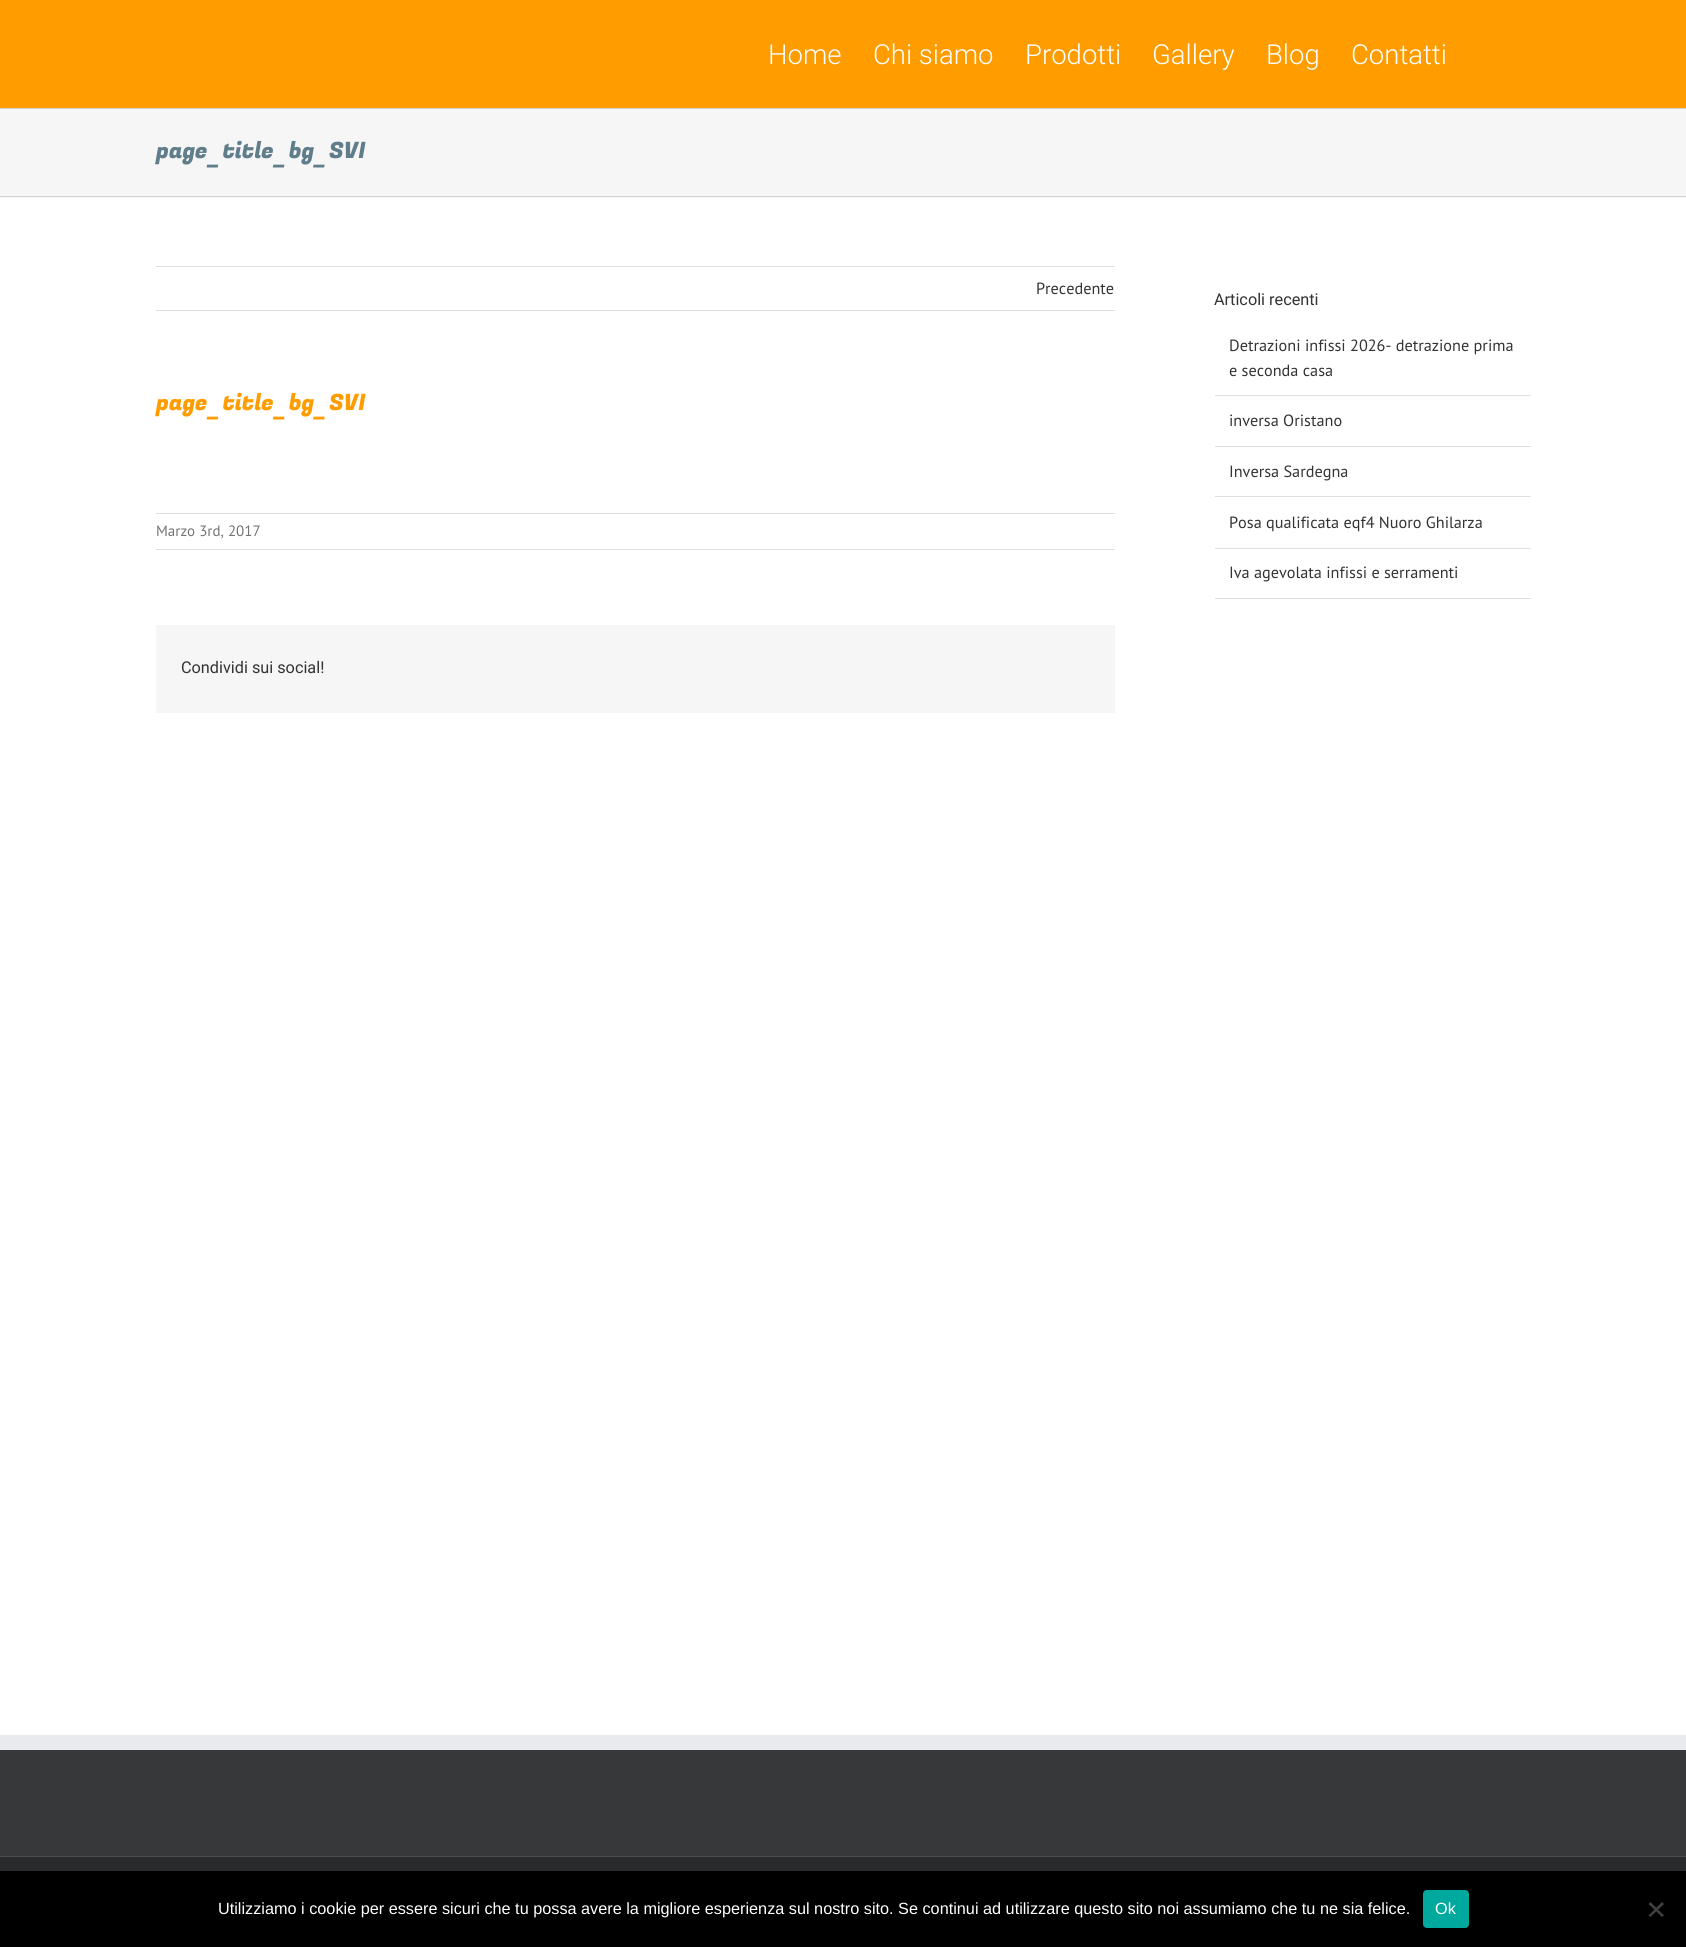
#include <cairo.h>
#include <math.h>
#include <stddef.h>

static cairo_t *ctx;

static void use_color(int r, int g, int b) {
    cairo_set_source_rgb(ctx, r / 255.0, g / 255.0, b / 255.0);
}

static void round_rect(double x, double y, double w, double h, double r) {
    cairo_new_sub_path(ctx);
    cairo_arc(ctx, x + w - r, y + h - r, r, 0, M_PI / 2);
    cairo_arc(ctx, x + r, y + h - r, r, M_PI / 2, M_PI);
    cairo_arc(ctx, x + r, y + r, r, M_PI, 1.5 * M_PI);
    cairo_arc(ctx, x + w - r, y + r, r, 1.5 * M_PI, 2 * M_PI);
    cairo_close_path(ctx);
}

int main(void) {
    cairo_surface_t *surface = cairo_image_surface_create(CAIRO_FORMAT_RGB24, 1686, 1947);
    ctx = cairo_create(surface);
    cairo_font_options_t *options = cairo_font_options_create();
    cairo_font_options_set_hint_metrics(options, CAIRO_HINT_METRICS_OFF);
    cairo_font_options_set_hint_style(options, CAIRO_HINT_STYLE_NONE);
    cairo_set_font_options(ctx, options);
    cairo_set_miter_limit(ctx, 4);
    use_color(255, 255, 255);
    cairo_paint(ctx);
    use_color(255, 157, 0);
    cairo_rectangle(ctx, 0, 0, 1686, 108);
    cairo_fill(ctx);
    cairo_select_font_face(ctx, "Roboto Light", CAIRO_FONT_SLANT_NORMAL, CAIRO_FONT_WEIGHT_NORMAL);
    cairo_set_font_size(ctx, 27.5);
    use_color(255, 255, 255);
    cairo_move_to(ctx, 768, 64);
    cairo_show_text(ctx, "Home");
    cairo_move_to(ctx, 873, 64);
    cairo_show_text(ctx, "Chi siamo");
    cairo_move_to(ctx, 1025, 64);
    cairo_show_text(ctx, "Prodotti");
    cairo_move_to(ctx, 1152, 64);
    cairo_show_text(ctx, "Gallery");
    cairo_move_to(ctx, 1266, 64);
    cairo_show_text(ctx, "Blog");
    cairo_move_to(ctx, 1351, 64);
    cairo_show_text(ctx, "Contatti");
    use_color(246, 246, 246);
    cairo_rectangle(ctx, 0, 109, 1686, 89);
    cairo_fill(ctx);
    use_color(210, 211, 212);
    cairo_rectangle(ctx, 0, 108, 1686, 1);
    cairo_fill(ctx);
    cairo_rectangle(ctx, 0, 196, 1686, 1);
    cairo_fill(ctx);
    cairo_select_font_face(ctx, "Fugaz One", CAIRO_FONT_SLANT_NORMAL, CAIRO_FONT_WEIGHT_NORMAL);
    cairo_set_font_size(ctx, 22.5);
    use_color(96, 125, 139);
    cairo_move_to(ctx, 156, 158);
    cairo_show_text(ctx, "page_title_bg_SVI");
    use_color(224, 222, 222);
    cairo_rectangle(ctx, 156, 266, 959, 1);
    cairo_fill(ctx);
    cairo_rectangle(ctx, 156, 310, 959, 1);
    cairo_fill(ctx);
    cairo_select_font_face(ctx, "PT Sans", CAIRO_FONT_SLANT_NORMAL, CAIRO_FONT_WEIGHT_NORMAL);
    cairo_set_font_size(ctx, 16.25);
    use_color(51, 51, 51);
    cairo_move_to(ctx, 1036, 294);
    cairo_show_text(ctx, "Precedente");
    cairo_select_font_face(ctx, "Fugaz One", CAIRO_FONT_SLANT_NORMAL, CAIRO_FONT_WEIGHT_NORMAL);
    cairo_set_font_size(ctx, 22.5);
    use_color(255, 157, 0);
    cairo_move_to(ctx, 156, 410);
    cairo_show_text(ctx, "page_title_bg_SVI");
    use_color(224, 222, 222);
    cairo_rectangle(ctx, 156, 513, 959, 1);
    cairo_fill(ctx);
    cairo_rectangle(ctx, 156, 549, 959, 1);
    cairo_fill(ctx);
    cairo_select_font_face(ctx, "PT Sans", CAIRO_FONT_SLANT_NORMAL, CAIRO_FONT_WEIGHT_NORMAL);
    cairo_set_font_size(ctx, 15);
    use_color(116, 116, 116);
    cairo_move_to(ctx, 156, 536);
    cairo_show_text(ctx, "Marzo 3rd, 2017");
    use_color(246, 246, 246);
    cairo_rectangle(ctx, 156, 625, 959, 88);
    cairo_fill(ctx);
    cairo_select_font_face(ctx, "Roboto", CAIRO_FONT_SLANT_NORMAL, CAIRO_FONT_WEIGHT_NORMAL);
    cairo_set_font_size(ctx, 16.25);
    use_color(51, 51, 51);
    cairo_move_to(ctx, 181, 673);
    cairo_show_text(ctx, "Condividi sui social!");
    cairo_move_to(ctx, 1214, 305);
    cairo_show_text(ctx, "Articoli recenti");
    use_color(224, 222, 222);
    cairo_rectangle(ctx, 1215, 395, 316, 1);
    cairo_fill(ctx);
    cairo_select_font_face(ctx, "PT Sans", CAIRO_FONT_SLANT_NORMAL, CAIRO_FONT_WEIGHT_NORMAL);
    use_color(51, 51, 51);
    cairo_move_to(ctx, 1229, 351);
    cairo_show_text(ctx, "Detrazioni infissi 2026- detrazione prima");
    cairo_move_to(ctx, 1229, 376);
    cairo_show_text(ctx, "e seconda casa");
    use_color(224, 222, 222);
    cairo_rectangle(ctx, 1215, 446, 316, 1);
    cairo_fill(ctx);
    use_color(51, 51, 51);
    cairo_move_to(ctx, 1229, 426);
    cairo_show_text(ctx, "inversa Oristano");
    use_color(224, 222, 222);
    cairo_rectangle(ctx, 1215, 496, 316, 1);
    cairo_fill(ctx);
    use_color(51, 51, 51);
    cairo_move_to(ctx, 1229, 477);
    cairo_show_text(ctx, "Inversa Sardegna");
    use_color(224, 222, 222);
    cairo_rectangle(ctx, 1215, 548, 316, 1);
    cairo_fill(ctx);
    use_color(51, 51, 51);
    cairo_move_to(ctx, 1229, 528);
    cairo_show_text(ctx, "Posa qualificata eqf4 Nuoro Ghilarza");
    use_color(224, 222, 222);
    cairo_rectangle(ctx, 1215, 598, 316, 1);
    cairo_fill(ctx);
    use_color(51, 51, 51);
    cairo_move_to(ctx, 1229, 578);
    cairo_show_text(ctx, "Iva agevolata infissi e serramenti");
    use_color(54, 56, 57);
    cairo_rectangle(ctx, 0, 1750, 1686, 106);
    cairo_fill(ctx);
    use_color(233, 234, 238);
    cairo_rectangle(ctx, 0, 1735, 1686, 15);
    cairo_fill(ctx);
    use_color(40, 42, 43);
    cairo_rectangle(ctx, 0, 1857, 1686, 14);
    cairo_fill(ctx);
    use_color(75, 76, 77);
    cairo_rectangle(ctx, 0, 1856, 1686, 1);
    cairo_fill(ctx);
    use_color(0, 0, 0);
    cairo_rectangle(ctx, 0, 1871, 1686, 76);
    cairo_fill(ctx);
    cairo_select_font_face(ctx, "Liberation Sans", CAIRO_FONT_SLANT_NORMAL, CAIRO_FONT_WEIGHT_NORMAL);
    use_color(255, 255, 255);
    cairo_move_to(ctx, 218, 1914);
    cairo_show_text(ctx, "Utilizziamo i cookie per essere sicuri che tu possa avere la migliore esperienza sul nostro sito. Se continui ad utilizzare questo sito noi assumiamo che tu ne sia felice.");
    use_color(0, 169, 157);
    round_rect(1423, 1890, 46, 38, 4);
    cairo_fill(ctx);
    use_color(255, 255, 255);
    cairo_move_to(ctx, 1435, 1914);
    cairo_show_text(ctx, "Ok");
    use_color(64, 64, 64);
    cairo_new_path(ctx);
    cairo_move_to(ctx, 1662, 1902);
    cairo_line_to(ctx, 1664, 1904);
    cairo_line_to(ctx, 1650.5, 1917);
    cairo_line_to(ctx, 1648.5, 1915.5);
    cairo_close_path(ctx);
    cairo_fill(ctx);
    cairo_new_path(ctx);
    cairo_move_to(ctx, 1648.5, 1904);
    cairo_line_to(ctx, 1650.5, 1902);
    cairo_line_to(ctx, 1664, 1915.5);
    cairo_line_to(ctx, 1662, 1917);
    cairo_close_path(ctx);
    cairo_fill(ctx);
    cairo_surface_write_to_png(surface, "result.png");
    cairo_font_options_destroy(options);
    cairo_destroy(ctx);
    cairo_surface_destroy(surface);
    return 0;
}
